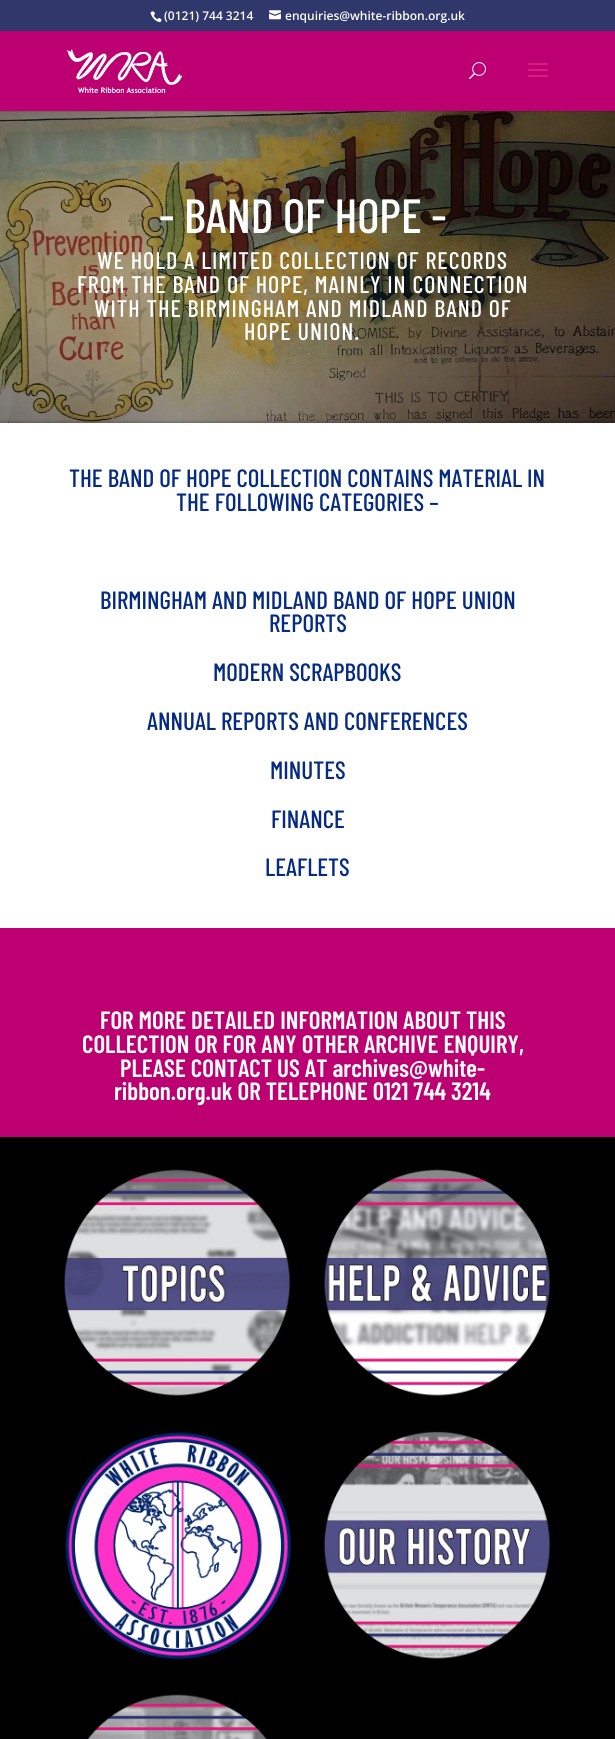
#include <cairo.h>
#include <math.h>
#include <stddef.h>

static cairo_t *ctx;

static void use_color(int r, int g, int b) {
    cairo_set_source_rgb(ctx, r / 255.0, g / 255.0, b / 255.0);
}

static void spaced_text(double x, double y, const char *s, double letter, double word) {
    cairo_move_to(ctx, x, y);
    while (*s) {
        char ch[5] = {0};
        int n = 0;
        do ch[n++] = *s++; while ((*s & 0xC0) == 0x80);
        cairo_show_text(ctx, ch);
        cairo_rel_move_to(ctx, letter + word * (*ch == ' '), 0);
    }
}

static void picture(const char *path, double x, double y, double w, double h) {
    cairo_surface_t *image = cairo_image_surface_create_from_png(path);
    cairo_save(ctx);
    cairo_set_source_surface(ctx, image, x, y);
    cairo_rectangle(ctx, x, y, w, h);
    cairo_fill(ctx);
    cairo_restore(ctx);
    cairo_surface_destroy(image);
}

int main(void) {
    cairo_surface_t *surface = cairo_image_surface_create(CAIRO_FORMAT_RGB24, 615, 1739);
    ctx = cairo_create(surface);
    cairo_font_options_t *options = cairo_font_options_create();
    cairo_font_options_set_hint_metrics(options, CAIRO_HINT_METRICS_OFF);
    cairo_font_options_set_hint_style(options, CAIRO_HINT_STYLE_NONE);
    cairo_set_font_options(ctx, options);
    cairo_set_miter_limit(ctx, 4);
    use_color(255, 255, 255);
    cairo_paint(ctx);
    use_color(48, 55, 107);
    cairo_rectangle(ctx, 0, 0, 615, 31);
    cairo_fill(ctx);
    picture("img1.png", 150, 11, 12, 12);
    cairo_select_font_face(ctx, "Open Sans SemiBold", CAIRO_FONT_SLANT_NORMAL, CAIRO_FONT_WEIGHT_NORMAL);
    cairo_set_font_size(ctx, 12);
    use_color(255, 255, 255);
    cairo_move_to(ctx, 164, 20);
    cairo_show_text(ctx, "(0121) 744 3214");
    picture("img2.png", 269, 10, 12, 10);
    cairo_move_to(ctx, 285, 20);
    cairo_show_text(ctx, "enquiries@white-ribbon.org.uk");
    picture("img6.png", 0, 111, 615, 312);
    cairo_set_source_rgba(ctx, 0, 0, 0, 0.1);
    cairo_rectangle(ctx, 0, 111, 615, 1);
    cairo_fill(ctx);
    use_color(188, 0, 113);
    cairo_rectangle(ctx, 0, 31, 615, 80);
    cairo_fill(ctx);
    picture("img3.png", 67, 49, 115, 44);
    picture("img4.png", 469, 62, 17, 18);
    picture("img5.png", 528, 63, 20, 14);
    cairo_select_font_face(ctx, "Barlow Condensed Medium", CAIRO_FONT_SLANT_NORMAL, CAIRO_FONT_WEIGHT_NORMAL);
    cairo_set_font_size(ctx, 48);
    use_color(255, 255, 255);
    cairo_move_to(ctx, 159, 233);
    cairo_show_text(ctx, "- BAND OF HOPE -");
    cairo_set_font_size(ctx, 24);
    spaced_text(97, 269, "WE HOLD A LIMITED COLLECTION OF RECORDS", 1, 0);
    spaced_text(77, 293, "FROM THE BAND OF HOPE, MAINLY IN CONNECTION", 1, 0);
    spaced_text(94, 317, "WITH THE BIRMINGHAM AND MIDLAND BAND OF", 1, 0);
    spaced_text(244, 340, "HOPE UNION.", 1, 0);
    cairo_set_font_size(ctx, 25);
    use_color(5, 42, 130);
    cairo_move_to(ctx, 69, 487);
    cairo_show_text(ctx, "THE BAND OF HOPE COLLECTION CONTAINS MATERIAL IN");
    cairo_move_to(ctx, 176, 511);
    cairo_show_text(ctx, "THE FOLLOWING CATEGORIES –");
    cairo_move_to(ctx, 100, 609);
    cairo_show_text(ctx, "BIRMINGHAM AND MIDLAND BAND OF HOPE UNION");
    cairo_move_to(ctx, 269, 632);
    cairo_show_text(ctx, "REPORTS");
    cairo_move_to(ctx, 213, 681);
    cairo_show_text(ctx, "MODERN SCRAPBOOKS");
    cairo_move_to(ctx, 147, 730);
    cairo_show_text(ctx, "ANNUAL REPORTS AND CONFERENCES");
    cairo_move_to(ctx, 270, 779);
    cairo_show_text(ctx, "MINUTES");
    cairo_move_to(ctx, 271, 828);
    cairo_show_text(ctx, "FINANCE");
    cairo_move_to(ctx, 265, 876);
    cairo_show_text(ctx, "LEAFLETS");
    use_color(188, 0, 113);
    cairo_rectangle(ctx, 0, 928, 615, 209);
    cairo_fill(ctx);
    cairo_select_font_face(ctx, "Barlow Condensed SemiBold", CAIRO_FONT_SLANT_NORMAL, CAIRO_FONT_WEIGHT_NORMAL);
    use_color(255, 255, 255);
    cairo_move_to(ctx, 100, 1029);
    cairo_show_text(ctx, "FOR MORE DETAILED INFORMATION ABOUT THIS");
    cairo_move_to(ctx, 82, 1053);
    cairo_show_text(ctx, "COLLECTION OR FOR ANY OTHER ARCHIVE ENQUIRY,");
    cairo_move_to(ctx, 120, 1077);
    cairo_show_text(ctx, "PLEASE CONTACT US AT archives@white-");
    cairo_move_to(ctx, 114, 1100);
    cairo_show_text(ctx, "ribbon.org.uk OR TELEPHONE 0121 744 3214");
    use_color(0, 0, 0);
    cairo_rectangle(ctx, 0, 1137, 615, 602);
    cairo_fill(ctx);
    picture("img7.png", 64, 1169, 227, 227);
    picture("img8.png", 324, 1169, 227, 227);
    picture("img9.png", 65, 1432, 227, 228);
    picture("img10.png", 324, 1431, 227, 228);
    picture("img11.png", 87, 1694, 180, 45);
    cairo_surface_write_to_png(surface, "result.png");
    cairo_font_options_destroy(options);
    cairo_destroy(ctx);
    cairo_surface_destroy(surface);
    return 0;
}
